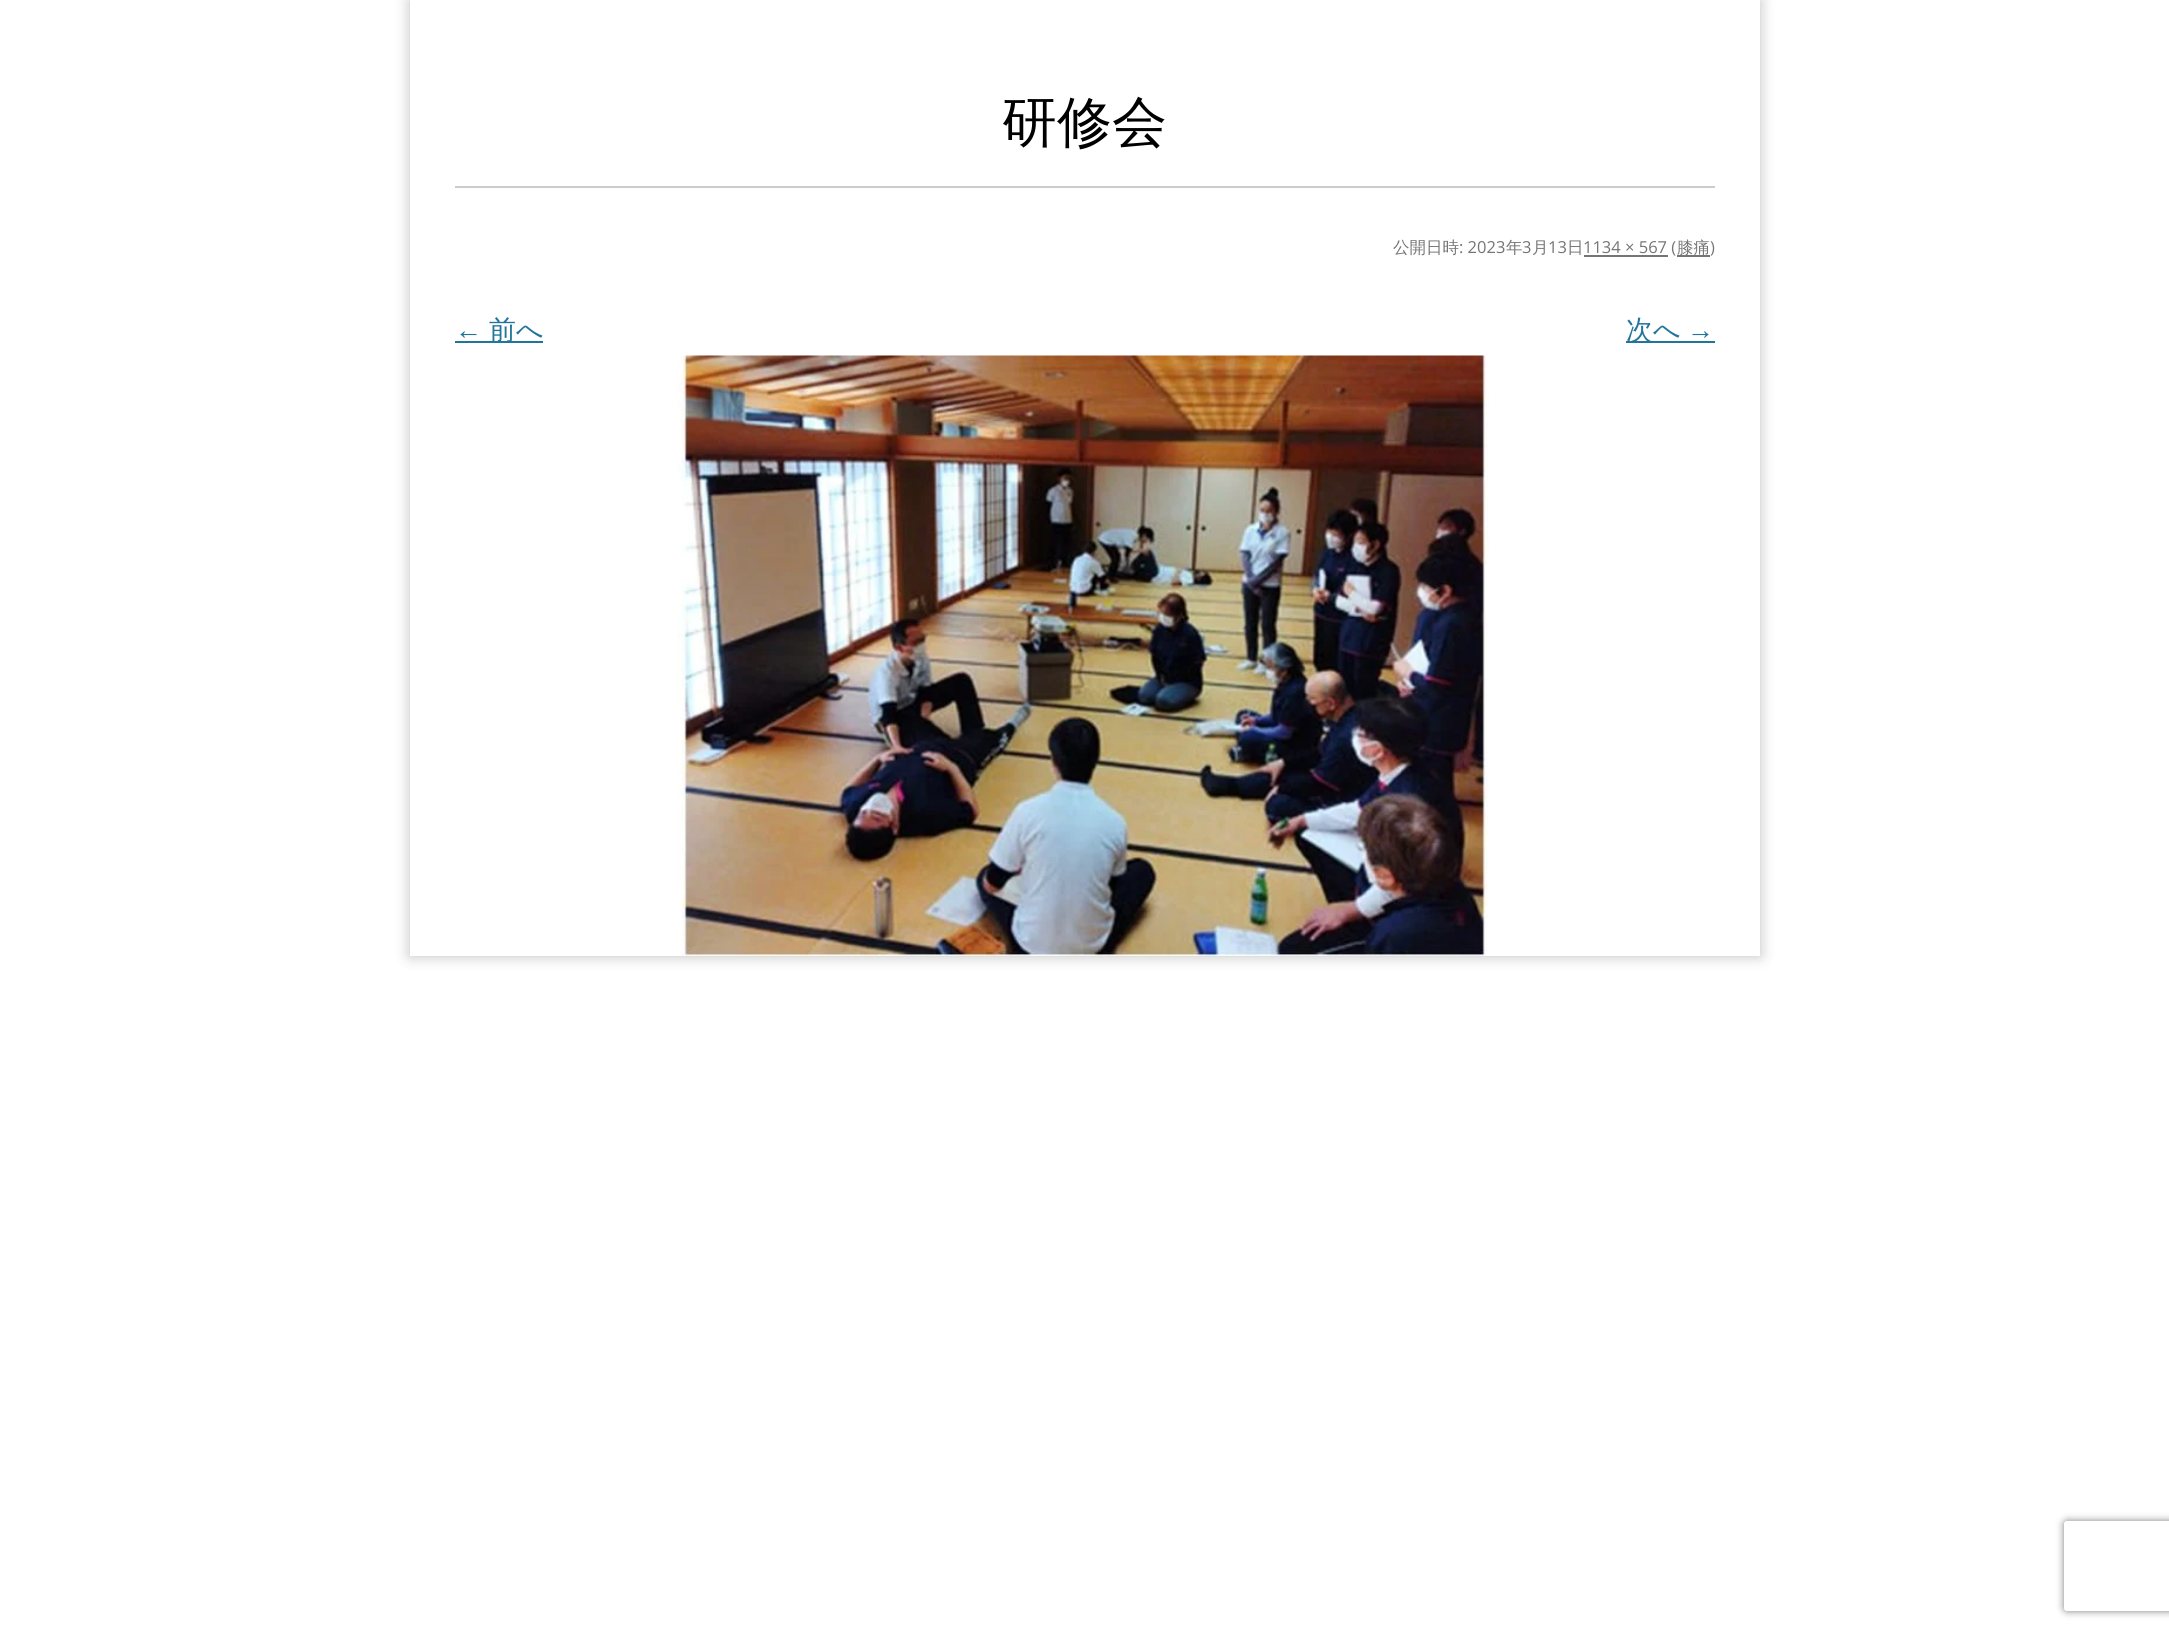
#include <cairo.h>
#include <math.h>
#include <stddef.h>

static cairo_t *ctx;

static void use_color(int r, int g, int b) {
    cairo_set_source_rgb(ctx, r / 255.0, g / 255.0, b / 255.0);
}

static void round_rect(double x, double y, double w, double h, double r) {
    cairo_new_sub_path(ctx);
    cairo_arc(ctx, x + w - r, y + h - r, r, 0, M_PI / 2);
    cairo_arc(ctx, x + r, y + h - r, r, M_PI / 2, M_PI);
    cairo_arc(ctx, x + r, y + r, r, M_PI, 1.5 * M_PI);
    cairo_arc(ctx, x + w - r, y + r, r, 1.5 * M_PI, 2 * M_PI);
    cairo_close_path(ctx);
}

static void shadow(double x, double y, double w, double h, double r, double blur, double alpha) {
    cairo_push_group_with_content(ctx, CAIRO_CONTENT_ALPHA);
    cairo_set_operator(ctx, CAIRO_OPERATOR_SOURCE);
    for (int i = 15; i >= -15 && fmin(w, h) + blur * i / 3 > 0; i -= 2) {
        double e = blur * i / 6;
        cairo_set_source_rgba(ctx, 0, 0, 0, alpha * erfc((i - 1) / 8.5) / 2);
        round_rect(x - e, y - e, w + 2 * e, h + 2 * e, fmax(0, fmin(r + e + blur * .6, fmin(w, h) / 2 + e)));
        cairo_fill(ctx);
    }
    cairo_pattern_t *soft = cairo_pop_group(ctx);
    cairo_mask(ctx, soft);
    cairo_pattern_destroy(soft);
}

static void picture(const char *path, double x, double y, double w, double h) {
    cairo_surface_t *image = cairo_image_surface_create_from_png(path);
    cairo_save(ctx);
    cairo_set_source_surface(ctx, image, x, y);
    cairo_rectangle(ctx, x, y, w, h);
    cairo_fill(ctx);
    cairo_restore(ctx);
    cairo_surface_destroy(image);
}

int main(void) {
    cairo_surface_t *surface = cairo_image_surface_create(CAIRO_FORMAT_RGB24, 2169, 1631);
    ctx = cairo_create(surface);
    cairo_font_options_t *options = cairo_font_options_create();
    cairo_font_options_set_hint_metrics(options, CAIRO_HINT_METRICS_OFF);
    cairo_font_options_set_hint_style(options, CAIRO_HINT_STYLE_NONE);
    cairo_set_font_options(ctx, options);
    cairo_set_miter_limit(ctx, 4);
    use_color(255, 255, 255);
    cairo_paint(ctx);
    use_color(0, 0, 0);
    shadow(410, 0, 1350, 956, 0, 7.5, 0.25);
    use_color(255, 255, 255);
    cairo_rectangle(ctx, 410, 0, 1350, 956);
    cairo_fill(ctx);
    use_color(204, 204, 204);
    cairo_rectangle(ctx, 455, 186, 1260, 2);
    cairo_fill(ctx);
    cairo_select_font_face(ctx, "WenQuanYi Zen Hei Medium", CAIRO_FONT_SLANT_NORMAL, CAIRO_FONT_WEIGHT_NORMAL);
    cairo_set_font_size(ctx, 55);
    use_color(0, 0, 0);
    cairo_move_to(ctx, 1002, 141);
    cairo_show_text(ctx, "研修会");
    cairo_set_font_size(ctx, 16.5);
    use_color(117, 117, 117);
    cairo_move_to(ctx, 1393, 253);
    cairo_show_text(ctx, "公開日時");
    cairo_select_font_face(ctx, "Open Sans", CAIRO_FONT_SLANT_NORMAL, CAIRO_FONT_WEIGHT_NORMAL);
    cairo_move_to(ctx, 1459, 253);
    cairo_show_text(ctx, ": 2023");
    cairo_select_font_face(ctx, "WenQuanYi Zen Hei Medium", CAIRO_FONT_SLANT_NORMAL, CAIRO_FONT_WEIGHT_NORMAL);
    cairo_move_to(ctx, 1506, 253);
    cairo_show_text(ctx, "年");
    cairo_select_font_face(ctx, "Open Sans", CAIRO_FONT_SLANT_NORMAL, CAIRO_FONT_WEIGHT_NORMAL);
    cairo_move_to(ctx, 1522, 253);
    cairo_show_text(ctx, "3");
    cairo_select_font_face(ctx, "WenQuanYi Zen Hei Medium", CAIRO_FONT_SLANT_NORMAL, CAIRO_FONT_WEIGHT_NORMAL);
    cairo_move_to(ctx, 1532, 253);
    cairo_show_text(ctx, "月");
    cairo_select_font_face(ctx, "Open Sans", CAIRO_FONT_SLANT_NORMAL, CAIRO_FONT_WEIGHT_NORMAL);
    cairo_move_to(ctx, 1548, 253);
    cairo_show_text(ctx, "13");
    cairo_select_font_face(ctx, "WenQuanYi Zen Hei Medium", CAIRO_FONT_SLANT_NORMAL, CAIRO_FONT_WEIGHT_NORMAL);
    cairo_move_to(ctx, 1567, 253);
    cairo_show_text(ctx, "日");
    cairo_rectangle(ctx, 1584, 255, 84, 2);
    cairo_fill(ctx);
    cairo_select_font_face(ctx, "Open Sans", CAIRO_FONT_SLANT_NORMAL, CAIRO_FONT_WEIGHT_NORMAL);
    cairo_move_to(ctx, 1583, 253);
    cairo_show_text(ctx, "1134 × 567 (");
    cairo_rectangle(ctx, 1677, 255, 33, 2);
    cairo_fill(ctx);
    cairo_select_font_face(ctx, "WenQuanYi Zen Hei Medium", CAIRO_FONT_SLANT_NORMAL, CAIRO_FONT_WEIGHT_NORMAL);
    cairo_move_to(ctx, 1677, 253);
    cairo_show_text(ctx, "膝痛");
    cairo_select_font_face(ctx, "Open Sans", CAIRO_FONT_SLANT_NORMAL, CAIRO_FONT_WEIGHT_NORMAL);
    cairo_move_to(ctx, 1710, 253);
    cairo_show_text(ctx, ")");
    cairo_select_font_face(ctx, "Liberation Sans", CAIRO_FONT_SLANT_NORMAL, CAIRO_FONT_WEIGHT_NORMAL);
    cairo_set_font_size(ctx, 27);
    use_color(33, 117, 155);
    cairo_move_to(ctx, 455, 339);
    cairo_show_text(ctx, "←");
    cairo_rectangle(ctx, 455, 341, 88, 2);
    cairo_fill(ctx);
    cairo_select_font_face(ctx, "WenQuanYi Zen Hei Medium", CAIRO_FONT_SLANT_NORMAL, CAIRO_FONT_WEIGHT_NORMAL);
    cairo_move_to(ctx, 489, 339);
    cairo_show_text(ctx, "前へ");
    cairo_rectangle(ctx, 1626, 341, 89, 2);
    cairo_fill(ctx);
    cairo_move_to(ctx, 1626, 339);
    cairo_show_text(ctx, "次へ");
    cairo_select_font_face(ctx, "Liberation Sans", CAIRO_FONT_SLANT_NORMAL, CAIRO_FONT_WEIGHT_NORMAL);
    cairo_move_to(ctx, 1687, 339);
    cairo_show_text(ctx, "→");
    picture("img1.png", 677, 355, 812, 601);
    cairo_save(ctx);
    cairo_set_fill_rule(ctx, CAIRO_FILL_RULE_EVEN_ODD);
    cairo_new_path(ctx);
    cairo_move_to(ctx, 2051, 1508);
    cairo_line_to(ctx, 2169, 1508);
    cairo_line_to(ctx, 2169, 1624);
    cairo_line_to(ctx, 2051, 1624);
    cairo_close_path(ctx);
    cairo_move_to(ctx, 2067, 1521);
    cairo_line_to(ctx, 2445, 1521);
    cairo_curve_to(ctx, 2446.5, 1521, 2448, 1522.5, 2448, 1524);
    cairo_line_to(ctx, 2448, 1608);
    cairo_curve_to(ctx, 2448, 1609.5, 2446.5, 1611, 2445, 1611);
    cairo_line_to(ctx, 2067, 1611);
    cairo_curve_to(ctx, 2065.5, 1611, 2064, 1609.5, 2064, 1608);
    cairo_line_to(ctx, 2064, 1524);
    cairo_curve_to(ctx, 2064, 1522.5, 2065.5, 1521, 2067, 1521);
    cairo_close_path(ctx);
    cairo_clip(ctx);
    use_color(128, 128, 128);
    shadow(2064, 1521, 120, 90, 3, 4, 1);
    cairo_restore(ctx);
    cairo_surface_write_to_png(surface, "result.png");
    cairo_font_options_destroy(options);
    cairo_destroy(ctx);
    cairo_surface_destroy(surface);
    return 0;
}
